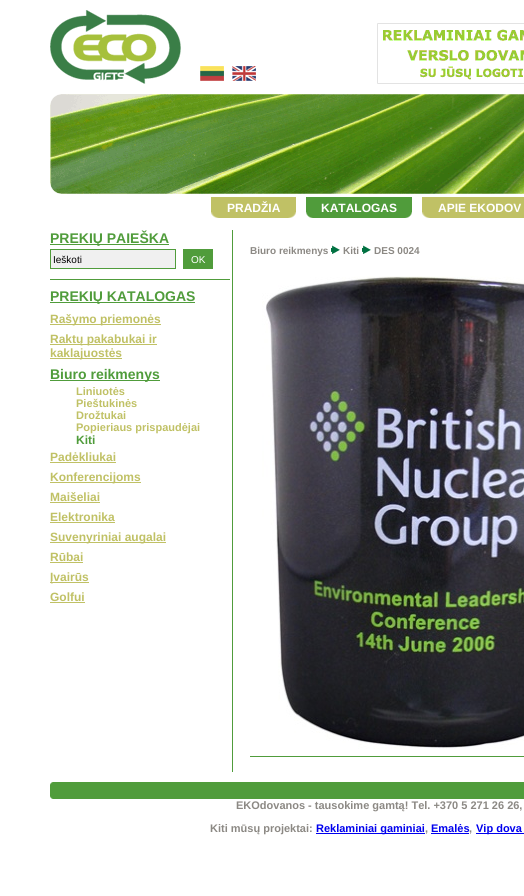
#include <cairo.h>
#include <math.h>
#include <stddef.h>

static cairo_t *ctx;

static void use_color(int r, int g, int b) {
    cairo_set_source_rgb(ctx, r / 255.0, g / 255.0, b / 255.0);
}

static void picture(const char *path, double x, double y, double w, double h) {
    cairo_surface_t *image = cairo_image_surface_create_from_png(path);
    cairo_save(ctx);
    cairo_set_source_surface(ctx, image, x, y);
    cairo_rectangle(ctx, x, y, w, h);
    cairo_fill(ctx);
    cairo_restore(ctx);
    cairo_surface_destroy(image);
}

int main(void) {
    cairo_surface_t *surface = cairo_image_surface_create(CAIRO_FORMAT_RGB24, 524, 896);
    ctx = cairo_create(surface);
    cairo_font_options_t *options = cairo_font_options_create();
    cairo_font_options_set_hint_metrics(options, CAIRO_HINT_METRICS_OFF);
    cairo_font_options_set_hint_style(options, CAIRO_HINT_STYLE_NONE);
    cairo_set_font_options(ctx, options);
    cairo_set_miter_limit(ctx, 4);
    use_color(255, 255, 255);
    cairo_paint(ctx);
    picture("img1.png", 50, 10, 131, 74);
    picture("img2.png", 200, 66, 24, 15);
    picture("img3.png", 232, 66, 24, 15);
    picture("img4.png", 377, 23, 147, 61);
    picture("img5.png", 50, 94, 474, 100);
    picture("img6.png", 50, 94, 11, 11);
    picture("img7.png", 50, 183, 13, 11);
    picture("img8.png", 211, 197, 8, 21);
    use_color(192, 193, 101);
    cairo_rectangle(ctx, 219, 197, 69, 21);
    cairo_fill(ctx);
    cairo_select_font_face(ctx, "Liberation Sans", CAIRO_FONT_SLANT_NORMAL, CAIRO_FONT_WEIGHT_BOLD);
    cairo_set_font_size(ctx, 12);
    use_color(255, 255, 255);
    cairo_move_to(ctx, 227, 212);
    cairo_show_text(ctx, "PRADŽIA");
    picture("img9.png", 288, 197, 8, 21);
    picture("img10.png", 306, 197, 7, 21);
    use_color(80, 156, 59);
    cairo_rectangle(ctx, 313, 197, 92, 21);
    cairo_fill(ctx);
    use_color(255, 255, 255);
    cairo_move_to(ctx, 321, 212);
    cairo_show_text(ctx, "KATALOGAS");
    picture("img11.png", 405, 197, 7, 21);
    picture("img8.png", 422, 197, 8, 21);
    use_color(192, 193, 101);
    cairo_rectangle(ctx, 430, 197, 94, 21);
    cairo_fill(ctx);
    use_color(255, 255, 255);
    cairo_move_to(ctx, 438, 212);
    cairo_show_text(ctx, "APIE EKODOV");
    use_color(80, 156, 59);
    cairo_rectangle(ctx, 50, 244, 119, 1);
    cairo_fill(ctx);
    cairo_set_font_size(ctx, 14);
    cairo_move_to(ctx, 50, 243);
    cairo_show_text(ctx, "PREKIŲ PAIEŠKA");
    use_color(240, 240, 240);
    cairo_rectangle(ctx, 50.5, 249.5, 125, 19);
    cairo_fill_preserve(ctx);
    use_color(80, 156, 59);
    cairo_set_line_width(ctx, 1);
    cairo_stroke(ctx);
    cairo_select_font_face(ctx, "Liberation Sans", CAIRO_FONT_SLANT_NORMAL, CAIRO_FONT_WEIGHT_NORMAL);
    cairo_set_font_size(ctx, 10);
    use_color(0, 0, 0);
    cairo_move_to(ctx, 53, 263);
    cairo_show_text(ctx, "Ieškoti");
    use_color(80, 156, 59);
    cairo_rectangle(ctx, 183, 249, 30, 20);
    cairo_fill(ctx);
    use_color(255, 255, 255);
    cairo_move_to(ctx, 191, 263);
    cairo_show_text(ctx, "OK");
    use_color(80, 156, 59);
    cairo_rectangle(ctx, 50, 279, 180, 1);
    cairo_fill(ctx);
    cairo_rectangle(ctx, 50, 302, 145, 1);
    cairo_fill(ctx);
    cairo_select_font_face(ctx, "Liberation Sans", CAIRO_FONT_SLANT_NORMAL, CAIRO_FONT_WEIGHT_BOLD);
    cairo_set_font_size(ctx, 14);
    cairo_move_to(ctx, 50, 301);
    cairo_show_text(ctx, "PREKIŲ KATALOGAS");
    use_color(192, 193, 101);
    cairo_rectangle(ctx, 50, 324, 111, 1);
    cairo_fill(ctx);
    cairo_set_font_size(ctx, 12);
    cairo_move_to(ctx, 50, 323);
    cairo_show_text(ctx, "Rašymo priemonės");
    cairo_rectangle(ctx, 50, 344, 107, 1);
    cairo_fill(ctx);
    cairo_move_to(ctx, 50, 343);
    cairo_show_text(ctx, "Raktų pakabukai ir");
    cairo_rectangle(ctx, 50, 358, 72, 1);
    cairo_fill(ctx);
    cairo_move_to(ctx, 50, 357);
    cairo_show_text(ctx, "kaklajuostės");
    use_color(80, 156, 59);
    cairo_rectangle(ctx, 50, 380, 110, 1);
    cairo_fill(ctx);
    cairo_set_font_size(ctx, 14);
    cairo_move_to(ctx, 50, 379);
    cairo_show_text(ctx, "Biuro reikmenys");
    cairo_set_font_size(ctx, 11);
    use_color(192, 193, 101);
    cairo_move_to(ctx, 76, 395);
    cairo_show_text(ctx, "Liniuotės");
    cairo_move_to(ctx, 76, 407);
    cairo_show_text(ctx, "Pieštukinės");
    cairo_move_to(ctx, 76, 419);
    cairo_show_text(ctx, "Drožtukai");
    cairo_move_to(ctx, 76, 431);
    cairo_show_text(ctx, "Popieriaus prispaudėjai");
    cairo_set_font_size(ctx, 12);
    use_color(80, 156, 59);
    cairo_move_to(ctx, 76, 444);
    cairo_show_text(ctx, "Kiti");
    use_color(192, 193, 101);
    cairo_move_to(ctx, 50, 461);
    cairo_show_text(ctx, "Padėkliukai");
    cairo_rectangle(ctx, 50, 462, 66, 1);
    cairo_fill(ctx);
    cairo_rectangle(ctx, 50, 482, 91, 1);
    cairo_fill(ctx);
    cairo_move_to(ctx, 50, 481);
    cairo_show_text(ctx, "Konferencijoms");
    cairo_move_to(ctx, 50, 501);
    cairo_show_text(ctx, "Maišeliai");
    cairo_rectangle(ctx, 50, 502, 50, 1);
    cairo_fill(ctx);
    cairo_move_to(ctx, 50, 521);
    cairo_show_text(ctx, "Elektronika");
    cairo_rectangle(ctx, 50, 522, 65, 1);
    cairo_fill(ctx);
    cairo_rectangle(ctx, 50, 542, 116, 1);
    cairo_fill(ctx);
    cairo_move_to(ctx, 50, 541);
    cairo_show_text(ctx, "Suvenyriniai augalai");
    cairo_move_to(ctx, 50, 561);
    cairo_show_text(ctx, "Rūbai");
    cairo_rectangle(ctx, 50, 562, 33, 1);
    cairo_fill(ctx);
    cairo_rectangle(ctx, 50, 582, 39, 1);
    cairo_fill(ctx);
    cairo_move_to(ctx, 50, 581);
    cairo_show_text(ctx, "Įvairūs");
    cairo_move_to(ctx, 50, 601);
    cairo_show_text(ctx, "Golfui");
    cairo_rectangle(ctx, 50, 602, 35, 1);
    cairo_fill(ctx);
    use_color(80, 156, 59);
    cairo_rectangle(ctx, 232, 230, 1, 542);
    cairo_fill(ctx);
    cairo_set_font_size(ctx, 10);
    use_color(140, 137, 132);
    cairo_move_to(ctx, 250, 254);
    cairo_show_text(ctx, "Biuro reikmenys");
    picture("img12.png", 331, 245, 9, 9);
    cairo_move_to(ctx, 343, 254);
    cairo_show_text(ctx, "Kiti");
    picture("img12.png", 362, 245, 9, 9);
    cairo_move_to(ctx, 374, 254);
    cairo_show_text(ctx, "DES 0024");
    use_color(80, 156, 59);
    cairo_rectangle(ctx, 250, 756, 274, 1);
    cairo_fill(ctx);
    picture("img13.png", 262, 276, 262, 473);
    picture("img14.png", 50, 782, 4, 17);
    cairo_rectangle(ctx, 54, 782, 470, 17);
    cairo_fill(ctx);
    cairo_set_font_size(ctx, 11);
    use_color(140, 137, 132);
    cairo_move_to(ctx, 236, 809);
    cairo_show_text(ctx, "EKOdovanos - tausokime gamtą! Tel. +370 5 271 26 26,");
    cairo_move_to(ctx, 210, 832);
    cairo_show_text(ctx, "Kiti mūsų projektai:");
    use_color(0, 0, 238);
    cairo_rectangle(ctx, 316, 833, 109, 1);
    cairo_fill(ctx);
    cairo_move_to(ctx, 316, 832);
    cairo_show_text(ctx, "Reklaminiai gaminiai");
    use_color(140, 137, 132);
    cairo_move_to(ctx, 425, 832);
    cairo_show_text(ctx, ",");
    use_color(0, 0, 238);
    cairo_move_to(ctx, 431, 832);
    cairo_show_text(ctx, "Emalės");
    cairo_rectangle(ctx, 431, 833, 38, 1);
    cairo_fill(ctx);
    use_color(140, 137, 132);
    cairo_move_to(ctx, 469, 832);
    cairo_show_text(ctx, ",");
    use_color(0, 0, 238);
    cairo_rectangle(ctx, 476, 833, 48, 1);
    cairo_fill(ctx);
    cairo_move_to(ctx, 476, 832);
    cairo_show_text(ctx, "Vip dova");
    cairo_surface_write_to_png(surface, "result.png");
    cairo_font_options_destroy(options);
    cairo_destroy(ctx);
    cairo_surface_destroy(surface);
    return 0;
}
